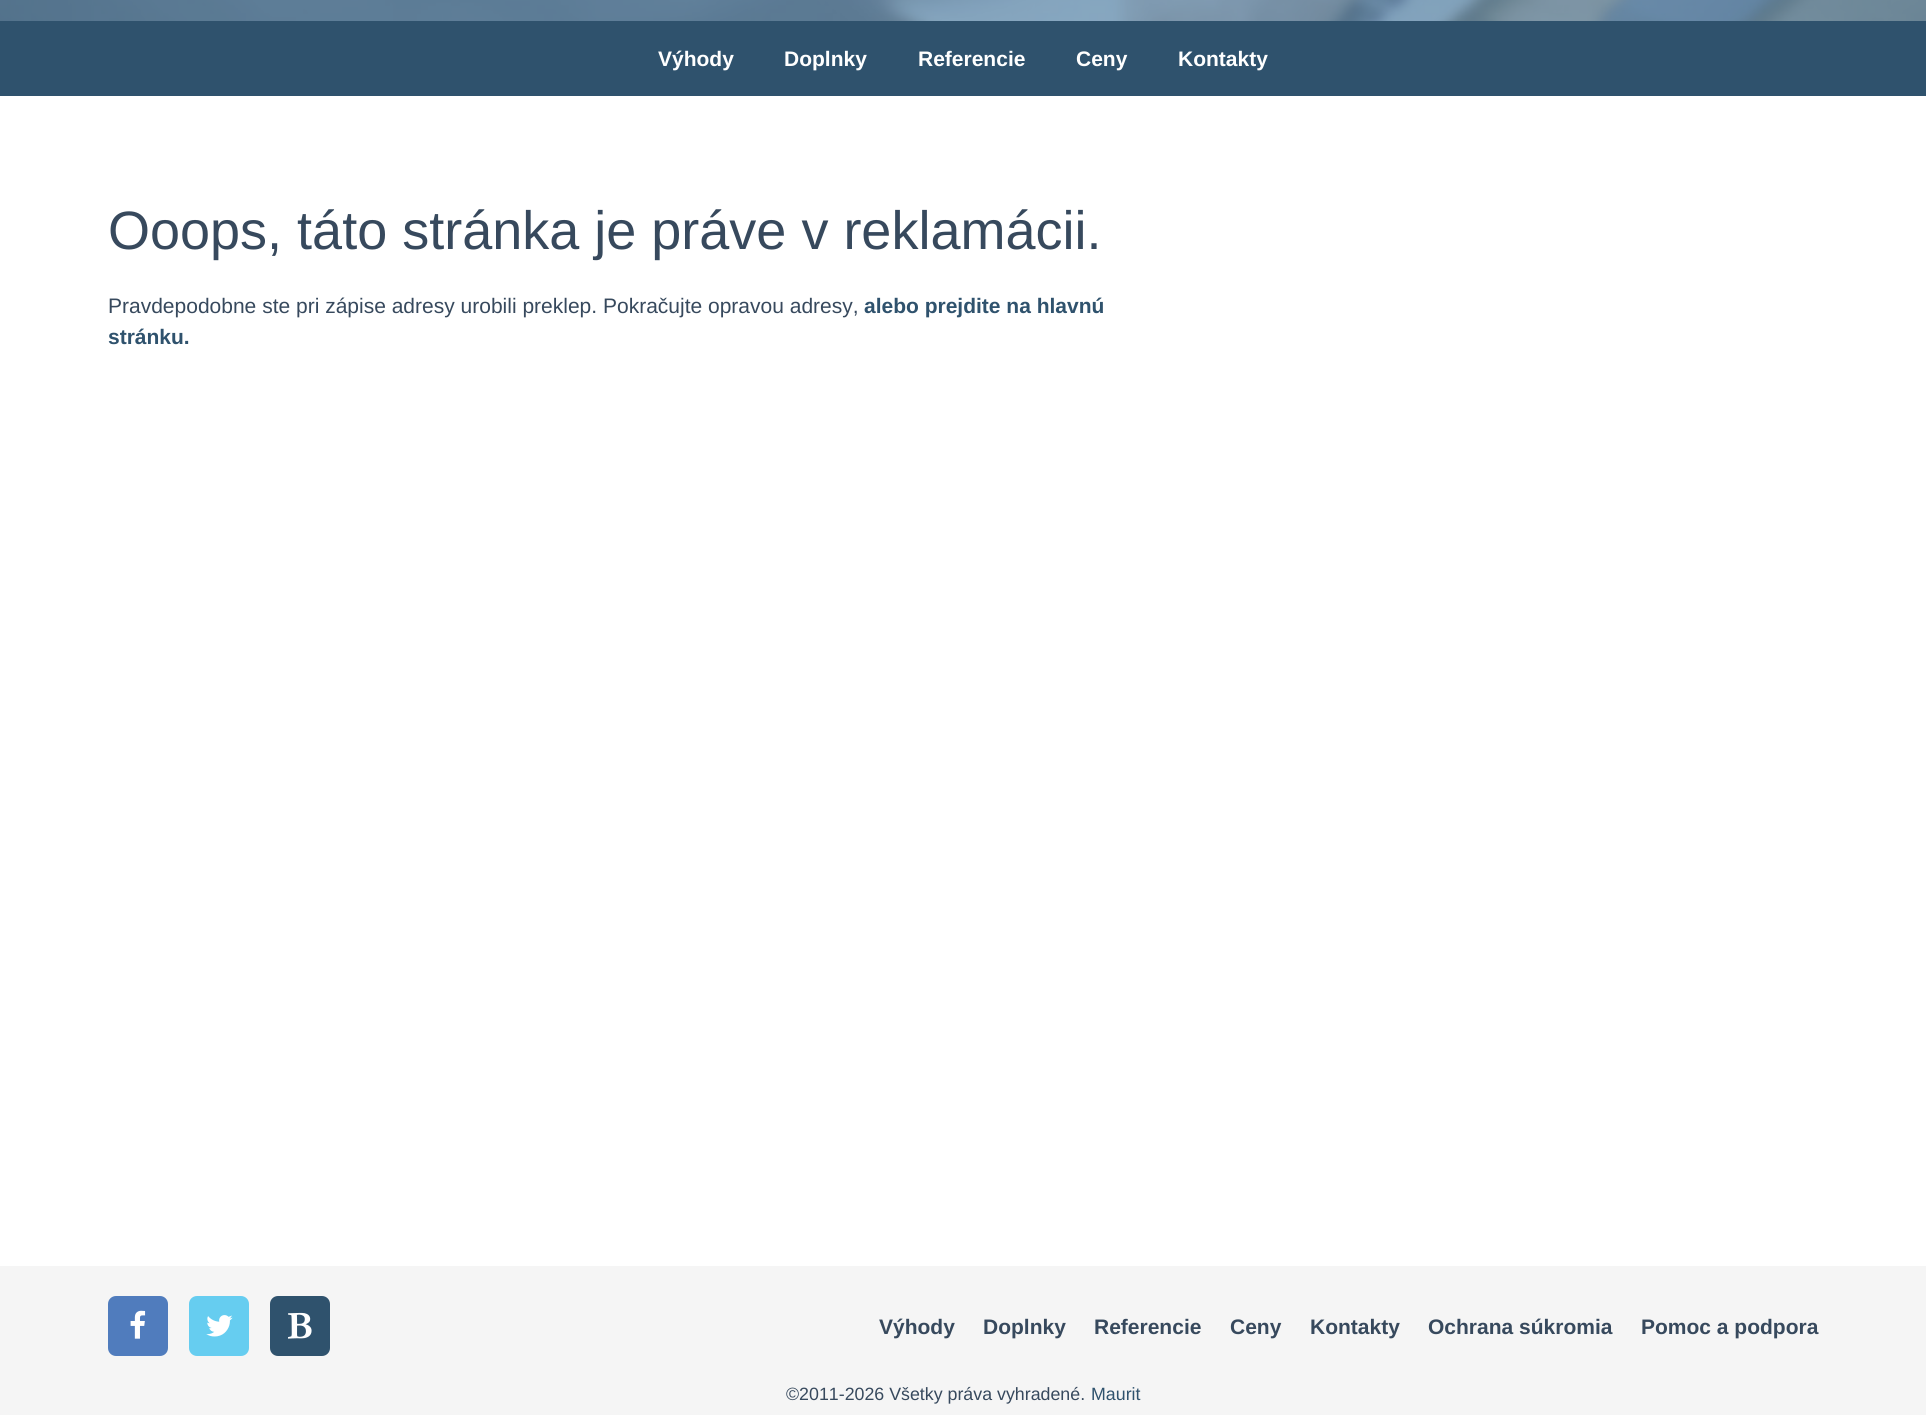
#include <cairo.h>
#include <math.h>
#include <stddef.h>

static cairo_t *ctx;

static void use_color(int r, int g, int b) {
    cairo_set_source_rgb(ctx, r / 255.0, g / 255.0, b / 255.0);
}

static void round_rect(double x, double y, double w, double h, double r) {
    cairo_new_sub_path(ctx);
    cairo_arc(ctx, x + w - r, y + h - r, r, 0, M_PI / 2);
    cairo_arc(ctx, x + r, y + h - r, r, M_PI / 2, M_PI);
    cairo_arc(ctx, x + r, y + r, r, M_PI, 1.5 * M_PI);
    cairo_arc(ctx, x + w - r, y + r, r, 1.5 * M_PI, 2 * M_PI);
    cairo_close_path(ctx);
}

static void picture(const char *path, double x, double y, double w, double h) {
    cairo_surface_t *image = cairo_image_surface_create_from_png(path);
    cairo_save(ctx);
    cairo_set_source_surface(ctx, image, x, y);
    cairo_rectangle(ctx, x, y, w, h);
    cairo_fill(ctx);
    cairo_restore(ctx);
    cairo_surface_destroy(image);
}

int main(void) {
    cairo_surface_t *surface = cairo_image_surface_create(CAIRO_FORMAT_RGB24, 1926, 1415);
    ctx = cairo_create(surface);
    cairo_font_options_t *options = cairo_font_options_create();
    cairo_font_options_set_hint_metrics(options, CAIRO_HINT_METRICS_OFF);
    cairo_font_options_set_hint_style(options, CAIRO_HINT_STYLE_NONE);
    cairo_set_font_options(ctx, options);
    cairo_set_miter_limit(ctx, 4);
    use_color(255, 255, 255);
    cairo_paint(ctx);
    picture("img1.png", 0, 0, 1926, 21);
    use_color(47, 82, 109);
    cairo_rectangle(ctx, 0, 21, 1926, 75);
    cairo_fill(ctx);
    cairo_select_font_face(ctx, "Liberation Sans", CAIRO_FONT_SLANT_NORMAL, CAIRO_FONT_WEIGHT_BOLD);
    cairo_set_font_size(ctx, 21);
    use_color(255, 255, 255);
    cairo_move_to(ctx, 658, 66);
    cairo_show_text(ctx, "Výhody");
    cairo_move_to(ctx, 784, 66);
    cairo_show_text(ctx, "Doplnky");
    cairo_move_to(ctx, 918, 66);
    cairo_show_text(ctx, "Referencie");
    cairo_move_to(ctx, 1076, 66);
    cairo_show_text(ctx, "Ceny");
    cairo_move_to(ctx, 1178, 66);
    cairo_show_text(ctx, "Kontakty");
    cairo_select_font_face(ctx, "Liberation Sans", CAIRO_FONT_SLANT_NORMAL, CAIRO_FONT_WEIGHT_NORMAL);
    cairo_set_font_size(ctx, 54);
    use_color(55, 73, 93);
    cairo_move_to(ctx, 108, 249);
    cairo_show_text(ctx, "Ooops, táto stránka je práve v reklamácii.");
    cairo_set_font_size(ctx, 21);
    cairo_move_to(ctx, 108, 313);
    cairo_show_text(ctx, "Pravdepodobne ste pri zápise adresy urobili preklep. Pokračujte opravou adresy,");
    cairo_select_font_face(ctx, "Liberation Sans", CAIRO_FONT_SLANT_NORMAL, CAIRO_FONT_WEIGHT_BOLD);
    use_color(47, 82, 109);
    cairo_move_to(ctx, 864, 313);
    cairo_show_text(ctx, "alebo prejdite na hlavnú");
    cairo_move_to(ctx, 108, 344);
    cairo_show_text(ctx, "stránku.");
    use_color(245, 245, 245);
    cairo_rectangle(ctx, 0, 1266, 1926, 149);
    cairo_fill(ctx);
    use_color(80, 124, 189);
    round_rect(108, 1296, 60, 60, 8);
    cairo_fill(ctx);
    picture("img2.png", 130, 1310, 16, 29);
    use_color(102, 205, 240);
    round_rect(189, 1296, 60, 60, 8);
    cairo_fill(ctx);
    picture("img3.png", 206, 1315, 27, 22);
    use_color(47, 82, 109);
    round_rect(270, 1296, 60, 60, 8);
    cairo_fill(ctx);
    picture("img4.png", 288, 1312, 24, 27);
    use_color(55, 73, 93);
    cairo_move_to(ctx, 879, 1334);
    cairo_show_text(ctx, "Výhody");
    cairo_move_to(ctx, 983, 1334);
    cairo_show_text(ctx, "Doplnky");
    cairo_move_to(ctx, 1094, 1334);
    cairo_show_text(ctx, "Referencie");
    cairo_move_to(ctx, 1230, 1334);
    cairo_show_text(ctx, "Ceny");
    cairo_move_to(ctx, 1310, 1334);
    cairo_show_text(ctx, "Kontakty");
    cairo_move_to(ctx, 1428, 1334);
    cairo_show_text(ctx, "Ochrana súkromia");
    cairo_move_to(ctx, 1641, 1334);
    cairo_show_text(ctx, "Pomoc a podpora");
    cairo_select_font_face(ctx, "Liberation Sans", CAIRO_FONT_SLANT_NORMAL, CAIRO_FONT_WEIGHT_NORMAL);
    cairo_set_font_size(ctx, 17.8);
    cairo_move_to(ctx, 786, 1400);
    cairo_show_text(ctx, "©2011-2026 Všetky práva vyhradené.");
    use_color(47, 82, 109);
    cairo_move_to(ctx, 1091, 1400);
    cairo_show_text(ctx, "Maurit");
    cairo_surface_write_to_png(surface, "result.png");
    cairo_font_options_destroy(options);
    cairo_destroy(ctx);
    cairo_surface_destroy(surface);
    return 0;
}
